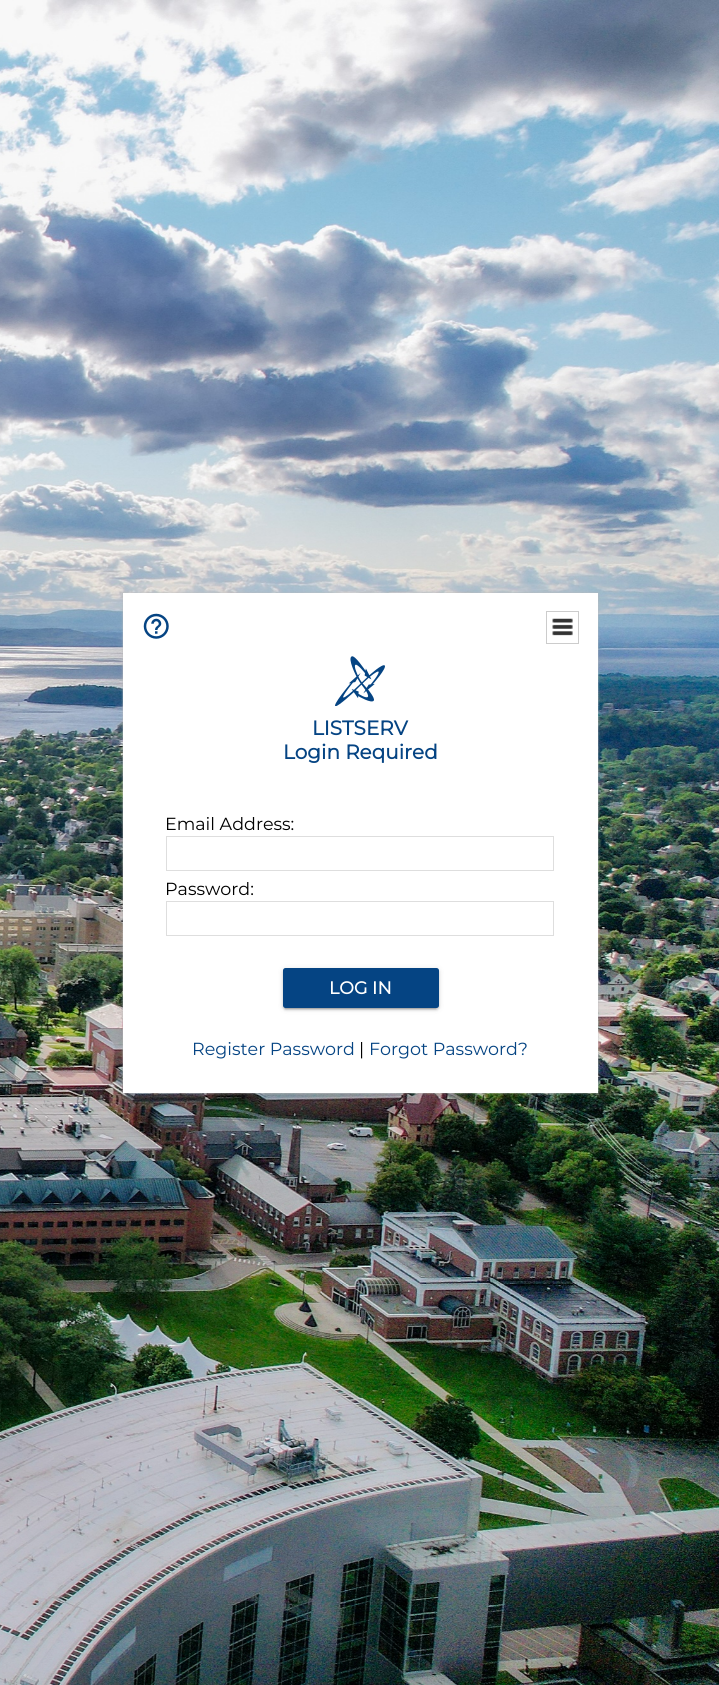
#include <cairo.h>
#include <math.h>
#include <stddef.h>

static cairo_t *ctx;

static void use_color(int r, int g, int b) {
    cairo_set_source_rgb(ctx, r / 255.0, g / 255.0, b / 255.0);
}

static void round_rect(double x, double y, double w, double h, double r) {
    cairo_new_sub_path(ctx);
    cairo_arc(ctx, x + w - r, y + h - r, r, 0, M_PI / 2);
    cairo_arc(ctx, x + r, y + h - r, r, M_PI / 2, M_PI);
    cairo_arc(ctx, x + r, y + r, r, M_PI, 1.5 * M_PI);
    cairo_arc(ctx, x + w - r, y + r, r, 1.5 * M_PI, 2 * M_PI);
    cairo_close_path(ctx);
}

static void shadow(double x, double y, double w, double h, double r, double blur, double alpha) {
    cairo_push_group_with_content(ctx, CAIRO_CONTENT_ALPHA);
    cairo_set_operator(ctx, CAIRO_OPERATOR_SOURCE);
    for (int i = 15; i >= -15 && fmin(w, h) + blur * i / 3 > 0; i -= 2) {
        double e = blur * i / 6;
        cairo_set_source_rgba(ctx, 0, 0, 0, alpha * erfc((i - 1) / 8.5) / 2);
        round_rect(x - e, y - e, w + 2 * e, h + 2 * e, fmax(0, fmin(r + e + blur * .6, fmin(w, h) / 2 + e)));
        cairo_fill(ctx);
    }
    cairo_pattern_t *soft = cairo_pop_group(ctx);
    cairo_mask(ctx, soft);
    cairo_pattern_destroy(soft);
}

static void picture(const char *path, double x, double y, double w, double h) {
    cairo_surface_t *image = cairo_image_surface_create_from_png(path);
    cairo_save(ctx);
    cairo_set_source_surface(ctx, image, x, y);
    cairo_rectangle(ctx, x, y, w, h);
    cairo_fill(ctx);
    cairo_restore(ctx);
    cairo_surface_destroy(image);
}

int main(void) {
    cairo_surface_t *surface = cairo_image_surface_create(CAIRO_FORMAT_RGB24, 719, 1685);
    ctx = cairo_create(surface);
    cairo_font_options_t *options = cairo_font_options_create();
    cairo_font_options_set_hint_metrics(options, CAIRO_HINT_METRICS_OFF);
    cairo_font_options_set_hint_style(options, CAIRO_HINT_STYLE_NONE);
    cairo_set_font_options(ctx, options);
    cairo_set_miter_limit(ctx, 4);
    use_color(255, 255, 255);
    cairo_paint(ctx);
    picture("img1.png", 0, 0, 719, 1685);
    use_color(187, 187, 187);
    shadow(123, 593, 475, 500, 0, 1, 1);
    use_color(255, 255, 255);
    cairo_rectangle(ctx, 123, 593, 475, 500);
    cairo_fill(ctx);
    picture("img2.png", 143, 613, 26, 26);
    cairo_rectangle(ctx, 546.5, 611.5, 32, 32);
    use_color(204, 204, 204);
    cairo_set_line_width(ctx, 1);
    cairo_stroke(ctx);
    picture("img3.png", 552, 618, 21, 18);
    picture("img4.png", 335, 656, 50, 50);
    cairo_select_font_face(ctx, "Montserrat", CAIRO_FONT_SLANT_NORMAL, CAIRO_FONT_WEIGHT_BOLD);
    cairo_set_font_size(ctx, 20);
    use_color(5, 68, 131);
    cairo_move_to(ctx, 312, 735);
    cairo_show_text(ctx, "LISTSERV");
    cairo_move_to(ctx, 283, 759);
    cairo_show_text(ctx, "Login Required");
    cairo_select_font_face(ctx, "Montserrat Thin", CAIRO_FONT_SLANT_NORMAL, CAIRO_FONT_WEIGHT_NORMAL);
    cairo_set_font_size(ctx, 17.5);
    use_color(0, 0, 0);
    cairo_move_to(ctx, 165, 830);
    cairo_show_text(ctx, "Email Address:");
    cairo_rectangle(ctx, 166.5, 836.5, 387, 34);
    use_color(222, 222, 222);
    cairo_stroke(ctx);
    use_color(0, 0, 0);
    cairo_move_to(ctx, 165, 895);
    cairo_show_text(ctx, "Password:");
    cairo_rectangle(ctx, 166.5, 901.5, 387, 34);
    use_color(222, 222, 222);
    cairo_stroke(ctx);
    use_color(0, 0, 0);
    shadow(285, 974, 151, 35, 0, 0.5, 0.2);
    shadow(283, 969, 156, 40, 2.5, 3, 0.12);
    shadow(283, 970, 156, 40, 2.5, 1, 0.14);
    use_color(5, 68, 131);
    round_rect(283, 968, 156, 40, 2.5);
    cairo_fill(ctx);
    cairo_select_font_face(ctx, "Montserrat", CAIRO_FONT_SLANT_NORMAL, CAIRO_FONT_WEIGHT_BOLD);
    use_color(255, 255, 255);
    cairo_move_to(ctx, 329, 994);
    cairo_show_text(ctx, "LOG IN");
    cairo_select_font_face(ctx, "Montserrat Thin", CAIRO_FONT_SLANT_NORMAL, CAIRO_FONT_WEIGHT_NORMAL);
    use_color(5, 68, 131);
    cairo_move_to(ctx, 192, 1055);
    cairo_show_text(ctx, "Register Password");
    use_color(0, 0, 0);
    cairo_move_to(ctx, 359, 1055);
    cairo_show_text(ctx, "|");
    use_color(5, 68, 131);
    cairo_move_to(ctx, 369, 1055);
    cairo_show_text(ctx, "Forgot Password?");
    cairo_surface_write_to_png(surface, "result.png");
    cairo_font_options_destroy(options);
    cairo_destroy(ctx);
    cairo_surface_destroy(surface);
    return 0;
}
